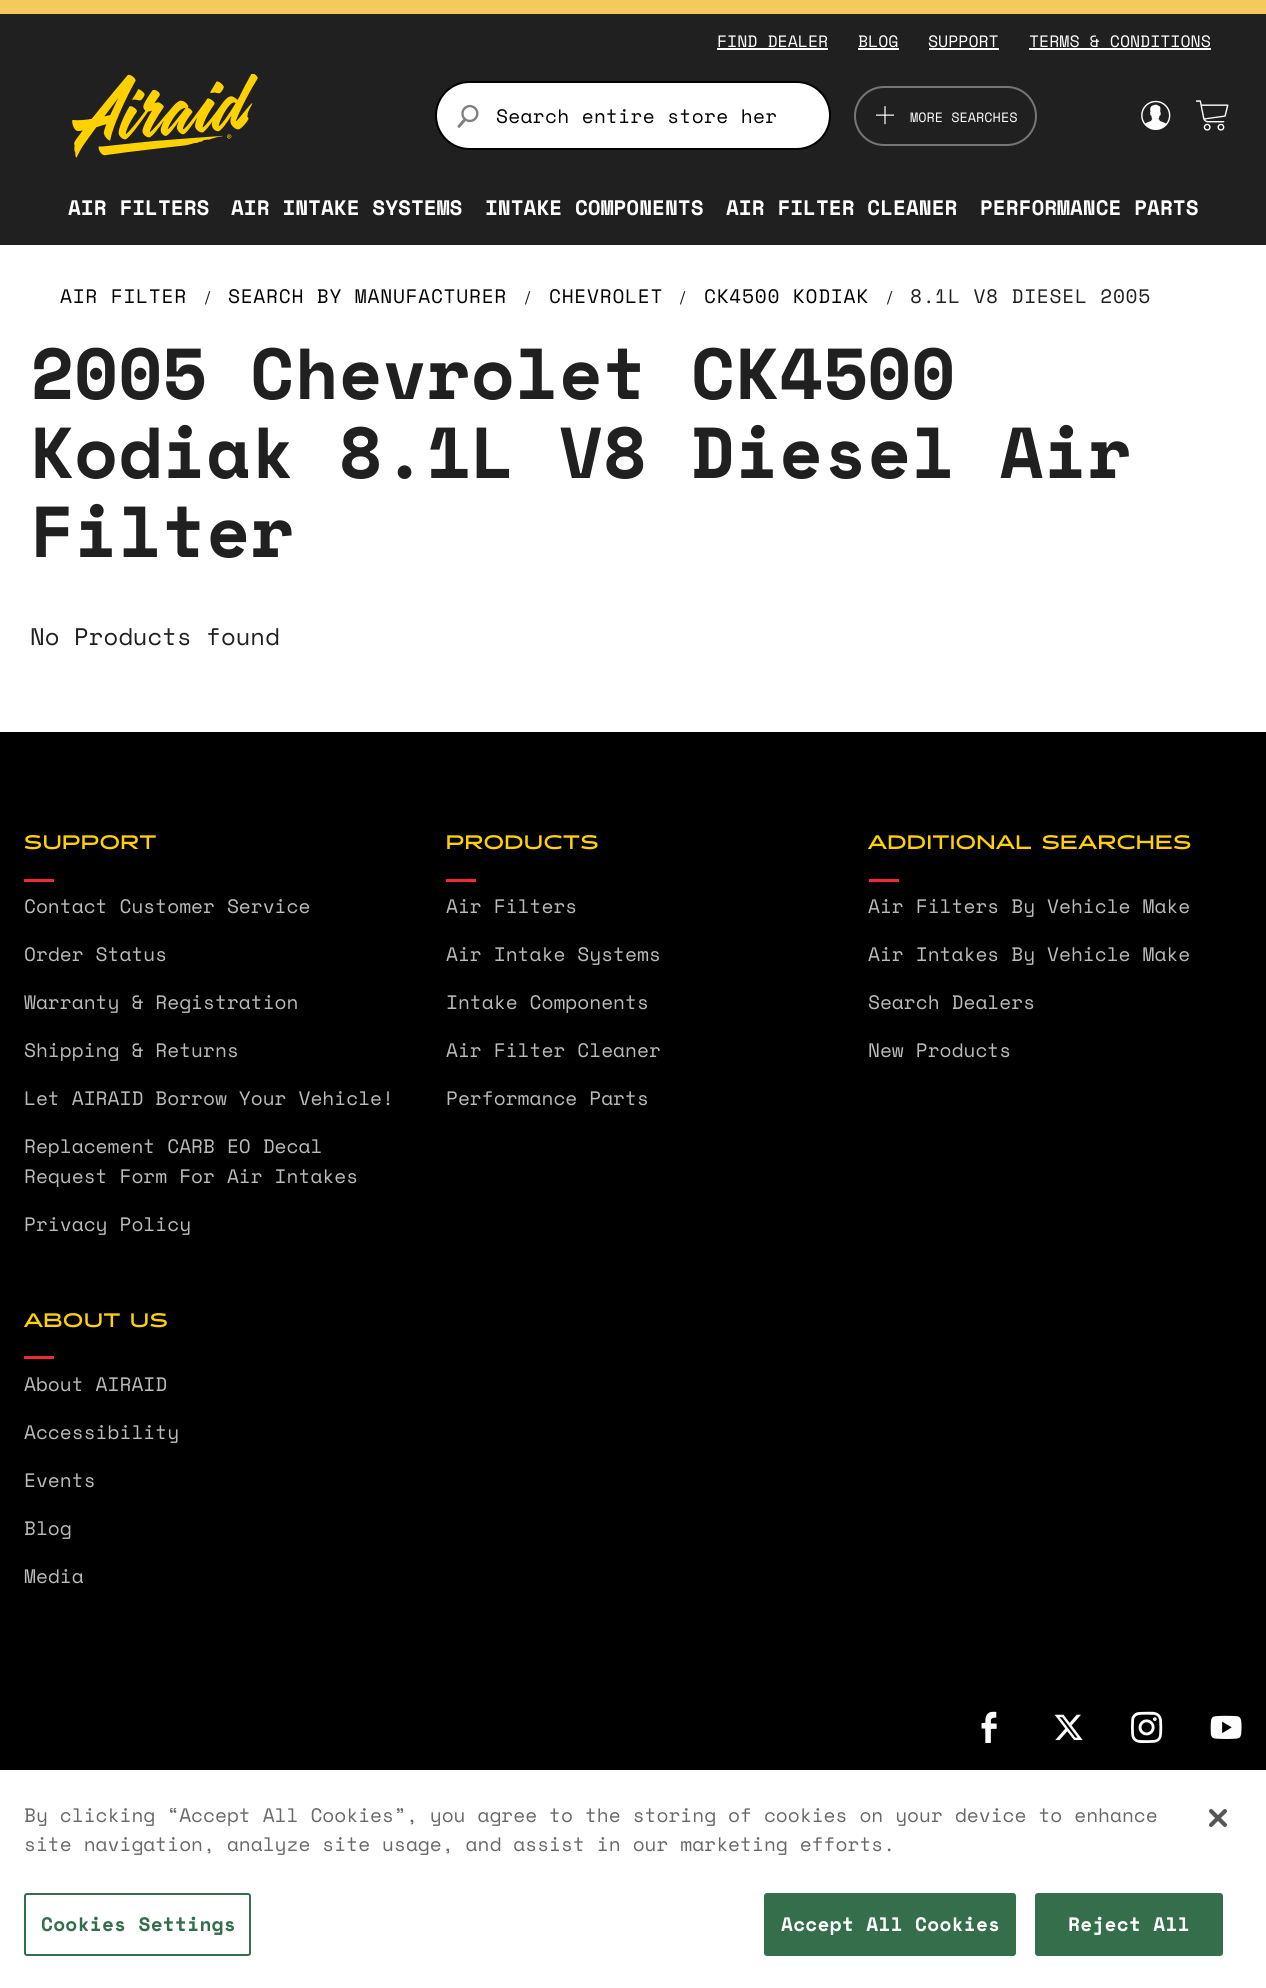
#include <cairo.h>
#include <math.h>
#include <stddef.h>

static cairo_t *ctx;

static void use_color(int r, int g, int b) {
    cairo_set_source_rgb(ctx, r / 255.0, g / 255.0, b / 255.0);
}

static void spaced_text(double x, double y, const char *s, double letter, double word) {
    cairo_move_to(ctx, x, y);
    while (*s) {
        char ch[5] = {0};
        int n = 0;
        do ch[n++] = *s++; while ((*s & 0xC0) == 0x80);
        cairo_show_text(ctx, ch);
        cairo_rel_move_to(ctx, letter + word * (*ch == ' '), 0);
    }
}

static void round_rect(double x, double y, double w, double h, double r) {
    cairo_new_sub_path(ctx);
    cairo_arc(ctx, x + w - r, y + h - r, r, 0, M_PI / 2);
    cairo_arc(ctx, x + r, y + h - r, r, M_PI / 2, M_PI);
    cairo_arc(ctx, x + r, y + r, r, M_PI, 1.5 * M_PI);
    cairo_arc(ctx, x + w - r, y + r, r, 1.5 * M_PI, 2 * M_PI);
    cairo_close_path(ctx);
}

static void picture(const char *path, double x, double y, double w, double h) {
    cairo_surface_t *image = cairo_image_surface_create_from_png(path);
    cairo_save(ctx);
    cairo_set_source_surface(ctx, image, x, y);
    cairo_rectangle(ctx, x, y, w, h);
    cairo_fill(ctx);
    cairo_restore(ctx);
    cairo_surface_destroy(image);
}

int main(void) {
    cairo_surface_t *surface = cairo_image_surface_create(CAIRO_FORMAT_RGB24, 1266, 1988);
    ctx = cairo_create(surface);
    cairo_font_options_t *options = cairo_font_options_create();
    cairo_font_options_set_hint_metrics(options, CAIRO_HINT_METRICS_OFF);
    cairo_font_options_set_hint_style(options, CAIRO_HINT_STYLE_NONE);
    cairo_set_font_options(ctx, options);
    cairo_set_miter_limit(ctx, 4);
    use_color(255, 255, 255);
    cairo_paint(ctx);
    use_color(246, 201, 92);
    cairo_rectangle(ctx, 0, 0, 1266, 14);
    cairo_fill(ctx);
    use_color(32, 32, 32);
    cairo_rectangle(ctx, 0, 14, 1266, 231);
    cairo_fill(ctx);
    cairo_select_font_face(ctx, "Space Mono", CAIRO_FONT_SLANT_NORMAL, CAIRO_FONT_WEIGHT_NORMAL);
    cairo_set_font_size(ctx, 16.5);
    use_color(255, 255, 255);
    cairo_move_to(ctx, 717, 47);
    cairo_show_text(ctx, "FIND DEALER");
    cairo_rectangle(ctx, 717, 48, 111, 2);
    cairo_fill(ctx);
    cairo_move_to(ctx, 858, 47);
    cairo_show_text(ctx, "BLOG");
    cairo_rectangle(ctx, 858, 48, 41, 2);
    cairo_fill(ctx);
    cairo_move_to(ctx, 928, 47);
    cairo_show_text(ctx, "SUPPORT");
    cairo_rectangle(ctx, 929, 48, 70, 2);
    cairo_fill(ctx);
    cairo_move_to(ctx, 1029, 47);
    cairo_show_text(ctx, "TERMS & CONDITIONS");
    cairo_rectangle(ctx, 1029, 48, 182, 2);
    cairo_fill(ctx);
    picture("img1.png", 72, 74, 186, 84);
    round_rect(436, 82, 394, 67, 33.5);
    cairo_fill_preserve(ctx);
    use_color(0, 0, 0);
    cairo_stroke(ctx);
    picture("img2.png", 457, 104, 22, 24);
    cairo_set_font_size(ctx, 19.5);
    spaced_text(496, 123, "Search entire store her", 0.3, 0);
    round_rect(855, 87, 181, 58, 29);
    use_color(118, 118, 118);
    cairo_stroke(ctx);
    picture("img3.png", 876, 106, 18, 19);
    cairo_set_font_size(ctx, 13.5);
    use_color(255, 255, 255);
    cairo_move_to(ctx, 910, 122);
    cairo_show_text(ctx, "MORE SEARCHES");
    picture("img4.png", 1141, 100, 30, 30);
    picture("img5.png", 1196, 100, 33, 31);
    cairo_select_font_face(ctx, "Space Mono", CAIRO_FONT_SLANT_NORMAL, CAIRO_FONT_WEIGHT_BOLD);
    cairo_set_font_size(ctx, 21);
    cairo_move_to(ctx, 68, 215);
    cairo_show_text(ctx, "AIR FILTERS");
    cairo_move_to(ctx, 231, 215);
    cairo_show_text(ctx, "AIR INTAKE SYSTEMS");
    cairo_move_to(ctx, 485, 215);
    cairo_show_text(ctx, "INTAKE COMPONENTS");
    cairo_move_to(ctx, 726, 215);
    cairo_show_text(ctx, "AIR FILTER CLEANER");
    cairo_move_to(ctx, 980, 215);
    cairo_show_text(ctx, "PERFORMANCE PARTS");
    cairo_select_font_face(ctx, "Space Mono", CAIRO_FONT_SLANT_NORMAL, CAIRO_FONT_WEIGHT_NORMAL);
    cairo_set_font_size(ctx, 19.5);
    use_color(0, 0, 0);
    spaced_text(60, 303, "AIR FILTER", 0.75, 0);
    cairo_set_font_size(ctx, 15);
    use_color(32, 32, 32);
    spaced_text(203, 303, "/", 0.75, 0);
    cairo_set_font_size(ctx, 19.5);
    use_color(0, 0, 0);
    spaced_text(228, 303, "SEARCH BY MANUFACTURER", 0.75, 0);
    cairo_set_font_size(ctx, 15);
    use_color(32, 32, 32);
    spaced_text(523, 303, "/", 0.75, 0);
    cairo_set_font_size(ctx, 19.5);
    use_color(0, 0, 0);
    spaced_text(549, 303, "CHEVROLET", 0.75, 0);
    cairo_set_font_size(ctx, 15);
    use_color(32, 32, 32);
    spaced_text(678, 303, "/", 0.75, 0);
    cairo_set_font_size(ctx, 19.5);
    use_color(0, 0, 0);
    spaced_text(704, 303, "CK4500 KODIAK", 0.75, 0);
    cairo_set_font_size(ctx, 15);
    use_color(32, 32, 32);
    spaced_text(885, 303, "/", 0.75, 0);
    cairo_set_font_size(ctx, 19.5);
    spaced_text(910, 303, "8.1L V8 DIESEL 2005", 0.75, 0);
    cairo_select_font_face(ctx, "Space Mono", CAIRO_FONT_SLANT_NORMAL, CAIRO_FONT_WEIGHT_BOLD);
    cairo_set_font_size(ctx, 72);
    cairo_move_to(ctx, 30, 399);
    cairo_show_text(ctx, "2005 Chevrolet CK4500");
    cairo_move_to(ctx, 30, 478);
    cairo_show_text(ctx, "Kodiak 8.1L V8 Diesel Air");
    cairo_move_to(ctx, 30, 557);
    cairo_show_text(ctx, "Filter");
    cairo_select_font_face(ctx, "Space Mono", CAIRO_FONT_SLANT_NORMAL, CAIRO_FONT_WEIGHT_NORMAL);
    cairo_set_font_size(ctx, 24);
    cairo_move_to(ctx, 30, 645);
    cairo_show_text(ctx, "No Products found");
    use_color(0, 0, 0);
    cairo_rectangle(ctx, 0, 732, 1266, 1038);
    cairo_fill(ctx);
    cairo_select_font_face(ctx, "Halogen", CAIRO_FONT_SLANT_NORMAL, CAIRO_FONT_WEIGHT_BOLD);
    cairo_set_font_size(ctx, 19.5);
    use_color(255, 209, 0);
    spaced_text(24, 849, "SUPPORT", 0.75, 0);
    use_color(243, 40, 53);
    cairo_rectangle(ctx, 24, 879, 30, 3);
    cairo_fill(ctx);
    cairo_select_font_face(ctx, "Space Mono", CAIRO_FONT_SLANT_NORMAL, CAIRO_FONT_WEIGHT_NORMAL);
    use_color(187, 187, 187);
    cairo_move_to(ctx, 24, 913);
    cairo_show_text(ctx, "Contact Customer Service");
    cairo_move_to(ctx, 24, 961);
    cairo_show_text(ctx, "Order Status");
    cairo_move_to(ctx, 24, 1009);
    cairo_show_text(ctx, "Warranty & Registration");
    cairo_move_to(ctx, 24, 1057);
    cairo_show_text(ctx, "Shipping & Returns");
    cairo_move_to(ctx, 24, 1105);
    cairo_show_text(ctx, "Let AIRAID Borrow Your Vehicle!");
    cairo_move_to(ctx, 24, 1153);
    cairo_show_text(ctx, "Replacement CARB EO Decal");
    cairo_move_to(ctx, 24, 1183);
    cairo_show_text(ctx, "Request Form For Air Intakes");
    cairo_move_to(ctx, 24, 1231);
    cairo_show_text(ctx, "Privacy Policy");
    cairo_select_font_face(ctx, "Halogen", CAIRO_FONT_SLANT_NORMAL, CAIRO_FONT_WEIGHT_BOLD);
    use_color(255, 209, 0);
    spaced_text(446, 849, "PRODUCTS", 0.75, 0);
    use_color(243, 40, 53);
    cairo_rectangle(ctx, 446, 879, 30, 3);
    cairo_fill(ctx);
    cairo_select_font_face(ctx, "Space Mono", CAIRO_FONT_SLANT_NORMAL, CAIRO_FONT_WEIGHT_NORMAL);
    use_color(187, 187, 187);
    cairo_move_to(ctx, 446, 913);
    cairo_show_text(ctx, "Air Filters");
    cairo_move_to(ctx, 446, 961);
    cairo_show_text(ctx, "Air Intake Systems");
    cairo_move_to(ctx, 446, 1009);
    cairo_show_text(ctx, "Intake Components");
    cairo_move_to(ctx, 446, 1057);
    cairo_show_text(ctx, "Air Filter Cleaner");
    cairo_move_to(ctx, 446, 1105);
    cairo_show_text(ctx, "Performance Parts");
    cairo_select_font_face(ctx, "Halogen", CAIRO_FONT_SLANT_NORMAL, CAIRO_FONT_WEIGHT_BOLD);
    use_color(255, 209, 0);
    spaced_text(868, 849, "ADDITIONAL SEARCHES", 0.75, 0);
    use_color(243, 40, 53);
    cairo_rectangle(ctx, 869, 879, 30, 3);
    cairo_fill(ctx);
    cairo_select_font_face(ctx, "Space Mono", CAIRO_FONT_SLANT_NORMAL, CAIRO_FONT_WEIGHT_NORMAL);
    use_color(187, 187, 187);
    cairo_move_to(ctx, 868, 913);
    cairo_show_text(ctx, "Air Filters By Vehicle Make");
    cairo_move_to(ctx, 868, 961);
    cairo_show_text(ctx, "Air Intakes By Vehicle Make");
    cairo_move_to(ctx, 868, 1009);
    cairo_show_text(ctx, "Search Dealers");
    cairo_move_to(ctx, 868, 1057);
    cairo_show_text(ctx, "New Products");
    cairo_select_font_face(ctx, "Halogen", CAIRO_FONT_SLANT_NORMAL, CAIRO_FONT_WEIGHT_BOLD);
    use_color(255, 209, 0);
    spaced_text(24, 1327, "ABOUT US", 0.75, 0);
    use_color(243, 40, 53);
    cairo_rectangle(ctx, 24, 1356, 30, 3);
    cairo_fill(ctx);
    cairo_select_font_face(ctx, "Space Mono", CAIRO_FONT_SLANT_NORMAL, CAIRO_FONT_WEIGHT_NORMAL);
    use_color(187, 187, 187);
    cairo_move_to(ctx, 24, 1391);
    cairo_show_text(ctx, "About AIRAID");
    cairo_move_to(ctx, 24, 1439);
    cairo_show_text(ctx, "Accessibility");
    cairo_move_to(ctx, 24, 1487);
    cairo_show_text(ctx, "Events");
    cairo_move_to(ctx, 24, 1535);
    cairo_show_text(ctx, "Blog");
    cairo_move_to(ctx, 24, 1583);
    cairo_show_text(ctx, "Media");
    picture("img6.png", 981, 1711, 16, 32);
    picture("img7.png", 1054, 1714, 29, 27);
    picture("img8.png", 1131, 1711, 32, 32);
    picture("img9.png", 1210, 1715, 32, 24);
    use_color(105, 105, 105);
    cairo_move_to(ctx, 24, 1822);
    cairo_show_text(ctx, "By clicking “Accept All Cookies”, you agree to the storing of cookies on your device to enhance");
    cairo_move_to(ctx, 24, 1851);
    cairo_show_text(ctx, "site navigation, analyze site usage, and assist in our marketing efforts.");
    round_rect(25, 1894, 225, 61, 2);
    use_color(52, 110, 74);
    cairo_stroke(ctx);
    cairo_select_font_face(ctx, "Space Mono", CAIRO_FONT_SLANT_NORMAL, CAIRO_FONT_WEIGHT_BOLD);
    spaced_text(41, 1931, "Cookies Settings", 0.25, 0);
    round_rect(765, 1894, 250, 61, 2);
    cairo_fill_preserve(ctx);
    cairo_stroke(ctx);
    use_color(255, 255, 255);
    spaced_text(781, 1931, "Accept All Cookies", 0.25, 0);
    use_color(52, 110, 74);
    round_rect(1036, 1894, 186, 61, 2);
    cairo_fill_preserve(ctx);
    cairo_stroke(ctx);
    use_color(255, 255, 255);
    spaced_text(1068, 1931, "Reject All", 0.25, 0);
    picture("img10.png", 1209, 1809, 18, 18);
    cairo_surface_write_to_png(surface, "result.png");
    cairo_font_options_destroy(options);
    cairo_destroy(ctx);
    cairo_surface_destroy(surface);
    return 0;
}
